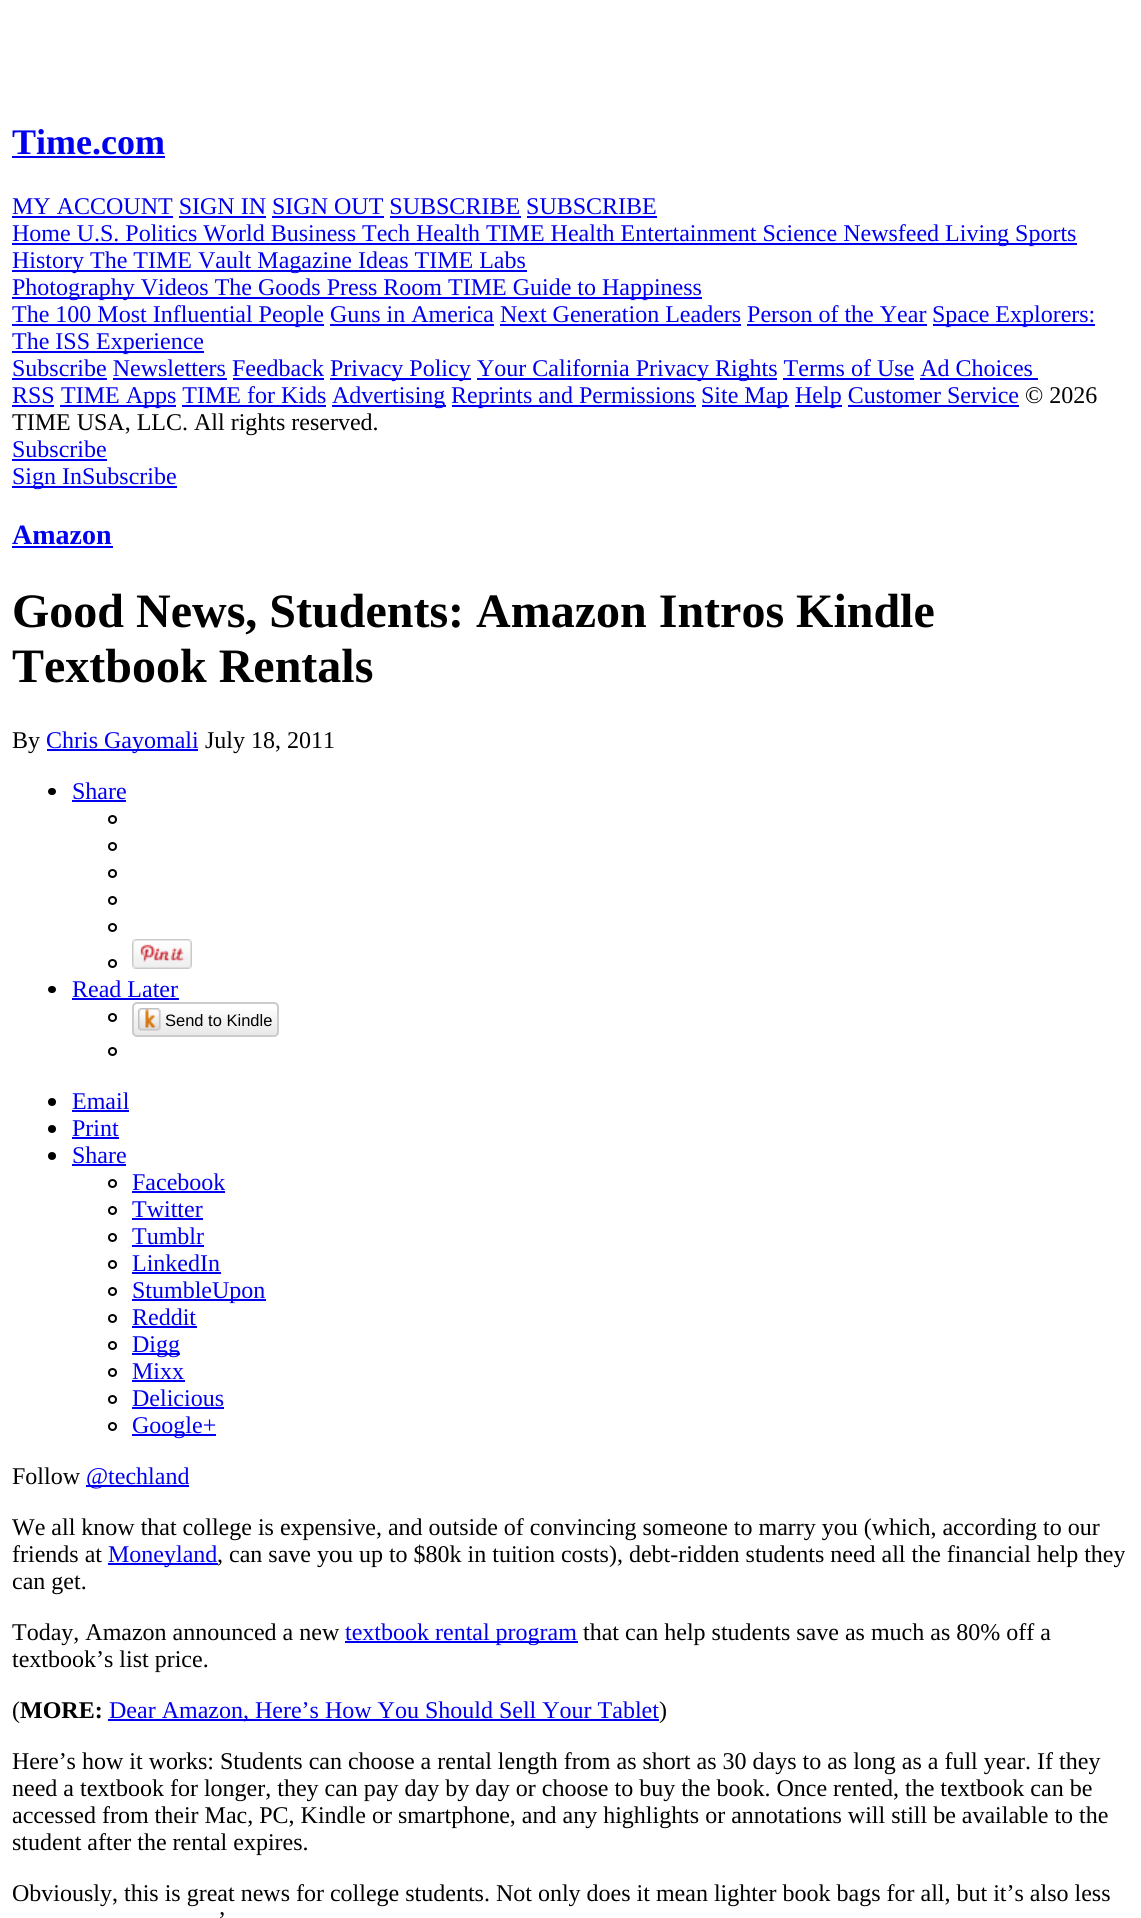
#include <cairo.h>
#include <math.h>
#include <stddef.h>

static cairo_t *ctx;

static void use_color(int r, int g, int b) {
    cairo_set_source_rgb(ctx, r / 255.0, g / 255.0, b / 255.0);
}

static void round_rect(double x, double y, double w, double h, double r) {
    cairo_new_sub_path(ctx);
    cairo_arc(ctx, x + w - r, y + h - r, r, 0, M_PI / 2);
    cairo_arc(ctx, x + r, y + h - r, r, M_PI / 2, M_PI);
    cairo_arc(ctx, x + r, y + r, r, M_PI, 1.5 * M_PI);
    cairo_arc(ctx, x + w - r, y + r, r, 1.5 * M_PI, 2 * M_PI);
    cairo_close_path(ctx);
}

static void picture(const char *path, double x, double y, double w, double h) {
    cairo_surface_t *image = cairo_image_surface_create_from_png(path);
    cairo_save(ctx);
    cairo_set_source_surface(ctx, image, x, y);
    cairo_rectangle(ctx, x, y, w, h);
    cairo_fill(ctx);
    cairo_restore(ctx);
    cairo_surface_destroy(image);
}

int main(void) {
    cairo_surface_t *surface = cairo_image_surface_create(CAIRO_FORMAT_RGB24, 1141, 1918);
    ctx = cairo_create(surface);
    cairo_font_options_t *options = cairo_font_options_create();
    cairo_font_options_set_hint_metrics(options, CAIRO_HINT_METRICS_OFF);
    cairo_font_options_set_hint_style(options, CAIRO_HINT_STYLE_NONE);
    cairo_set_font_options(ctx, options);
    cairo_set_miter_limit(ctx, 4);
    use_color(255, 255, 255);
    cairo_paint(ctx);
    cairo_select_font_face(ctx, "Liberation Serif", CAIRO_FONT_SLANT_NORMAL, CAIRO_FONT_WEIGHT_BOLD);
    cairo_set_font_size(ctx, 36);
    use_color(0, 0, 238);
    cairo_move_to(ctx, 12, 154);
    cairo_show_text(ctx, "Time.com");
    cairo_rectangle(ctx, 12, 156, 153, 2);
    cairo_fill(ctx);
    cairo_select_font_face(ctx, "Liberation Serif", CAIRO_FONT_SLANT_NORMAL, CAIRO_FONT_WEIGHT_NORMAL);
    cairo_set_font_size(ctx, 24);
    cairo_move_to(ctx, 12, 214);
    cairo_show_text(ctx, "MY ACCOUNT SIGN IN SIGN OUT SUBSCRIBE SUBSCRIBE");
    cairo_rectangle(ctx, 12, 216, 161, 2);
    cairo_fill(ctx);
    cairo_rectangle(ctx, 179, 216, 87, 2);
    cairo_fill(ctx);
    cairo_rectangle(ctx, 272, 216, 112, 2);
    cairo_fill(ctx);
    cairo_rectangle(ctx, 390, 216, 131, 2);
    cairo_fill(ctx);
    cairo_rectangle(ctx, 527, 216, 130, 2);
    cairo_fill(ctx);
    cairo_rectangle(ctx, 12, 243, 1065, 2);
    cairo_fill(ctx);
    cairo_move_to(ctx, 12, 241);
    cairo_show_text(ctx, "Home U.S. Politics World Business Tech Health TIME Health Entertainment Science Newsfeed Living Sports");
    cairo_rectangle(ctx, 12, 270, 515, 2);
    cairo_fill(ctx);
    cairo_move_to(ctx, 12, 268);
    cairo_show_text(ctx, "History The TIME Vault Magazine Ideas TIME Labs");
    cairo_rectangle(ctx, 12, 297, 690, 2);
    cairo_fill(ctx);
    cairo_move_to(ctx, 12, 295);
    cairo_show_text(ctx, "Photography Videos The Goods Press Room TIME Guide to Happiness");
    cairo_rectangle(ctx, 12, 324, 312, 2);
    cairo_fill(ctx);
    cairo_move_to(ctx, 12, 322);
    cairo_show_text(ctx, "The 100 Most Influential People Guns in America Next Generation Leaders Person of the Year");
    cairo_rectangle(ctx, 933, 324, 162, 2);
    cairo_fill(ctx);
    cairo_move_to(ctx, 932, 322);
    cairo_show_text(ctx, "Space Explorers:");
    cairo_rectangle(ctx, 330, 324, 164, 2);
    cairo_fill(ctx);
    cairo_rectangle(ctx, 500, 324, 241, 2);
    cairo_fill(ctx);
    cairo_rectangle(ctx, 747, 324, 180, 2);
    cairo_fill(ctx);
    cairo_rectangle(ctx, 12, 351, 192, 2);
    cairo_fill(ctx);
    cairo_move_to(ctx, 12, 349);
    cairo_show_text(ctx, "The ISS Experience");
    cairo_move_to(ctx, 12, 376);
    cairo_show_text(ctx, "Subscribe Newsletters Feedback");
    cairo_rectangle(ctx, 12, 378, 95, 2);
    cairo_fill(ctx);
    cairo_rectangle(ctx, 330, 378, 141, 2);
    cairo_fill(ctx);
    cairo_move_to(ctx, 330, 376);
    cairo_show_text(ctx, "Privacy Policy");
    cairo_rectangle(ctx, 477, 378, 300, 2);
    cairo_fill(ctx);
    cairo_move_to(ctx, 477, 376);
    cairo_show_text(ctx, "Your California Privacy Rights Terms of Use Ad Choices");
    cairo_rectangle(ctx, 113, 378, 114, 2);
    cairo_fill(ctx);
    cairo_rectangle(ctx, 233, 378, 91, 2);
    cairo_fill(ctx);
    cairo_rectangle(ctx, 783, 378, 131, 2);
    cairo_fill(ctx);
    cairo_rectangle(ctx, 920, 378, 118, 2);
    cairo_fill(ctx);
    cairo_move_to(ctx, 12, 403);
    cairo_show_text(ctx, "RSS");
    cairo_rectangle(ctx, 12, 405, 42, 2);
    cairo_fill(ctx);
    cairo_rectangle(ctx, 60, 405, 116, 2);
    cairo_fill(ctx);
    cairo_move_to(ctx, 61, 403);
    cairo_show_text(ctx, "TIME Apps TIME for Kids");
    cairo_rectangle(ctx, 332, 405, 114, 2);
    cairo_fill(ctx);
    cairo_move_to(ctx, 332, 403);
    cairo_show_text(ctx, "Advertising");
    cairo_rectangle(ctx, 452, 405, 244, 2);
    cairo_fill(ctx);
    cairo_move_to(ctx, 451, 403);
    cairo_show_text(ctx, "Reprints and Permissions");
    cairo_rectangle(ctx, 702, 405, 87, 2);
    cairo_fill(ctx);
    cairo_move_to(ctx, 701, 403);
    cairo_show_text(ctx, "Site Map");
    cairo_rectangle(ctx, 795, 405, 47, 2);
    cairo_fill(ctx);
    cairo_move_to(ctx, 795, 403);
    cairo_show_text(ctx, "Help Customer Service");
    use_color(0, 0, 0);
    cairo_move_to(ctx, 1025, 403);
    cairo_show_text(ctx, "© 2026");
    use_color(0, 0, 238);
    cairo_rectangle(ctx, 182, 405, 144, 2);
    cairo_fill(ctx);
    cairo_rectangle(ctx, 848, 405, 171, 2);
    cairo_fill(ctx);
    use_color(0, 0, 0);
    cairo_move_to(ctx, 12, 430);
    cairo_show_text(ctx, "TIME USA, LLC. All rights reserved.");
    use_color(0, 0, 238);
    cairo_move_to(ctx, 12, 457);
    cairo_show_text(ctx, "Subscribe");
    cairo_rectangle(ctx, 12, 459, 95, 2);
    cairo_fill(ctx);
    cairo_rectangle(ctx, 12, 486, 165, 2);
    cairo_fill(ctx);
    cairo_move_to(ctx, 12, 484);
    cairo_show_text(ctx, "Sign InSubscribe");
    cairo_select_font_face(ctx, "Liberation Serif", CAIRO_FONT_SLANT_NORMAL, CAIRO_FONT_WEIGHT_BOLD);
    cairo_set_font_size(ctx, 28);
    cairo_move_to(ctx, 12, 544);
    cairo_show_text(ctx, "Amazon");
    cairo_rectangle(ctx, 12, 546, 101, 2);
    cairo_fill(ctx);
    cairo_set_font_size(ctx, 48);
    use_color(0, 0, 0);
    cairo_move_to(ctx, 12, 627);
    cairo_show_text(ctx, "Good News, Students: Amazon Intros Kindle");
    cairo_move_to(ctx, 12, 682);
    cairo_show_text(ctx, "Textbook Rentals");
    cairo_select_font_face(ctx, "Liberation Serif", CAIRO_FONT_SLANT_NORMAL, CAIRO_FONT_WEIGHT_NORMAL);
    cairo_set_font_size(ctx, 24);
    cairo_move_to(ctx, 12, 748);
    cairo_show_text(ctx, "By");
    use_color(0, 0, 238);
    cairo_rectangle(ctx, 47, 749, 151, 2);
    cairo_fill(ctx);
    cairo_move_to(ctx, 46, 748);
    cairo_show_text(ctx, "Chris Gayomali");
    use_color(0, 0, 0);
    cairo_move_to(ctx, 205, 748);
    cairo_show_text(ctx, "July 18, 2011");
    round_rect(48, 788, 8, 7, 3.5);
    cairo_fill(ctx);
    use_color(0, 0, 238);
    cairo_move_to(ctx, 72, 799);
    cairo_show_text(ctx, "Share");
    cairo_rectangle(ctx, 72, 800, 54, 2);
    cairo_fill(ctx);
    cairo_arc(ctx, 112.5, 819.5, 3.5, 0, 2 * M_PI);
    use_color(0, 0, 0);
    cairo_stroke(ctx);
    cairo_arc(ctx, 112.5, 846.5, 3.5, 0, 2 * M_PI);
    cairo_stroke(ctx);
    cairo_arc(ctx, 112.5, 873.5, 3.5, 0, 2 * M_PI);
    cairo_stroke(ctx);
    cairo_arc(ctx, 112.5, 900.5, 3.5, 0, 2 * M_PI);
    cairo_stroke(ctx);
    cairo_arc(ctx, 112.5, 927.5, 3.5, 0, 2 * M_PI);
    cairo_stroke(ctx);
    cairo_arc(ctx, 112.5, 963.5, 3.5, 0, 2 * M_PI);
    cairo_stroke(ctx);
    picture("img1.png", 132, 939, 60, 30);
    round_rect(48, 986, 8, 7, 3.5);
    cairo_fill(ctx);
    use_color(0, 0, 238);
    cairo_move_to(ctx, 72, 997);
    cairo_show_text(ctx, "Read Later");
    cairo_rectangle(ctx, 72, 998, 107, 2);
    cairo_fill(ctx);
    cairo_arc(ctx, 112.5, 1017.5, 3.5, 0, 2 * M_PI);
    use_color(0, 0, 0);
    cairo_stroke(ctx);
    picture("img2.png", 132, 1010, 147, 25);
    round_rect(133, 1003, 145, 33, 4);
    use_color(204, 204, 204);
    cairo_stroke(ctx);
    picture("img3.png", 138, 1008, 23, 23);
    cairo_select_font_face(ctx, "Liberation Sans", CAIRO_FONT_SLANT_NORMAL, CAIRO_FONT_WEIGHT_NORMAL);
    cairo_set_font_size(ctx, 16.5);
    use_color(0, 0, 0);
    cairo_move_to(ctx, 165, 1026);
    cairo_show_text(ctx, "Send to Kindle");
    cairo_new_path(ctx);
    cairo_arc(ctx, 112.5, 1051.5, 3.5, 0, 2 * M_PI);
    cairo_stroke(ctx);
    cairo_arc(ctx, 52, 1102, 4, 0, 2 * M_PI);
    cairo_fill(ctx);
    cairo_select_font_face(ctx, "Liberation Serif", CAIRO_FONT_SLANT_NORMAL, CAIRO_FONT_WEIGHT_NORMAL);
    cairo_set_font_size(ctx, 24);
    use_color(0, 0, 238);
    cairo_move_to(ctx, 72, 1109);
    cairo_show_text(ctx, "Email");
    cairo_rectangle(ctx, 72, 1110, 57, 2);
    cairo_fill(ctx);
    use_color(0, 0, 0);
    cairo_arc(ctx, 52, 1129, 4, 0, 2 * M_PI);
    cairo_fill(ctx);
    use_color(0, 0, 238);
    cairo_move_to(ctx, 72, 1136);
    cairo_show_text(ctx, "Print");
    cairo_rectangle(ctx, 72, 1137, 47, 2);
    cairo_fill(ctx);
    use_color(0, 0, 0);
    cairo_arc(ctx, 52, 1156, 4, 0, 2 * M_PI);
    cairo_fill(ctx);
    use_color(0, 0, 238);
    cairo_move_to(ctx, 72, 1163);
    cairo_show_text(ctx, "Share");
    cairo_rectangle(ctx, 72, 1164, 54, 2);
    cairo_fill(ctx);
    cairo_arc(ctx, 112.5, 1183.5, 3.5, 0, 2 * M_PI);
    use_color(0, 0, 0);
    cairo_stroke(ctx);
    use_color(0, 0, 238);
    cairo_move_to(ctx, 132, 1190);
    cairo_show_text(ctx, "Facebook");
    cairo_rectangle(ctx, 132, 1191, 93, 2);
    cairo_fill(ctx);
    cairo_arc(ctx, 112.5, 1210.5, 3.5, 0, 2 * M_PI);
    use_color(0, 0, 0);
    cairo_stroke(ctx);
    use_color(0, 0, 238);
    cairo_move_to(ctx, 132, 1217);
    cairo_show_text(ctx, "Twitter");
    cairo_rectangle(ctx, 132, 1218, 71, 2);
    cairo_fill(ctx);
    cairo_arc(ctx, 112.5, 1237.5, 3.5, 0, 2 * M_PI);
    use_color(0, 0, 0);
    cairo_stroke(ctx);
    use_color(0, 0, 238);
    cairo_move_to(ctx, 132, 1244);
    cairo_show_text(ctx, "Tumblr");
    cairo_rectangle(ctx, 132, 1245, 72, 2);
    cairo_fill(ctx);
    cairo_arc(ctx, 112.5, 1264.5, 3.5, 0, 2 * M_PI);
    use_color(0, 0, 0);
    cairo_stroke(ctx);
    use_color(0, 0, 238);
    cairo_move_to(ctx, 132, 1271);
    cairo_show_text(ctx, "LinkedIn");
    cairo_rectangle(ctx, 132, 1272, 89, 2);
    cairo_fill(ctx);
    cairo_arc(ctx, 112.5, 1291.5, 3.5, 0, 2 * M_PI);
    use_color(0, 0, 0);
    cairo_stroke(ctx);
    use_color(0, 0, 238);
    cairo_rectangle(ctx, 132, 1299, 134, 2);
    cairo_fill(ctx);
    cairo_move_to(ctx, 132, 1298);
    cairo_show_text(ctx, "StumbleUpon");
    cairo_new_path(ctx);
    cairo_arc(ctx, 112.5, 1318.5, 3.5, 0, 2 * M_PI);
    use_color(0, 0, 0);
    cairo_stroke(ctx);
    use_color(0, 0, 238);
    cairo_move_to(ctx, 132, 1325);
    cairo_show_text(ctx, "Reddit");
    cairo_rectangle(ctx, 132, 1326, 65, 2);
    cairo_fill(ctx);
    cairo_arc(ctx, 112.5, 1345.5, 3.5, 0, 2 * M_PI);
    use_color(0, 0, 0);
    cairo_stroke(ctx);
    use_color(0, 0, 238);
    cairo_rectangle(ctx, 132, 1353, 48, 2);
    cairo_fill(ctx);
    cairo_move_to(ctx, 132, 1352);
    cairo_show_text(ctx, "Digg");
    cairo_new_path(ctx);
    cairo_arc(ctx, 112.5, 1372.5, 3.5, 0, 2 * M_PI);
    use_color(0, 0, 0);
    cairo_stroke(ctx);
    use_color(0, 0, 238);
    cairo_move_to(ctx, 132, 1379);
    cairo_show_text(ctx, "Mixx");
    cairo_rectangle(ctx, 132, 1380, 53, 2);
    cairo_fill(ctx);
    cairo_arc(ctx, 112.5, 1399.5, 3.5, 0, 2 * M_PI);
    use_color(0, 0, 0);
    cairo_stroke(ctx);
    use_color(0, 0, 238);
    cairo_move_to(ctx, 132, 1406);
    cairo_show_text(ctx, "Delicious");
    cairo_rectangle(ctx, 132, 1407, 92, 2);
    cairo_fill(ctx);
    cairo_arc(ctx, 112.5, 1426.5, 3.5, 0, 2 * M_PI);
    use_color(0, 0, 0);
    cairo_stroke(ctx);
    use_color(0, 0, 238);
    cairo_rectangle(ctx, 132, 1434, 84, 2);
    cairo_fill(ctx);
    cairo_move_to(ctx, 132, 1433);
    cairo_show_text(ctx, "Google+");
    use_color(0, 0, 0);
    cairo_move_to(ctx, 12, 1484);
    cairo_show_text(ctx, "Follow");
    use_color(0, 0, 238);
    cairo_rectangle(ctx, 86, 1485, 103, 2);
    cairo_fill(ctx);
    cairo_move_to(ctx, 86, 1484);
    cairo_show_text(ctx, "@techland");
    use_color(0, 0, 0);
    cairo_move_to(ctx, 12, 1535);
    cairo_show_text(ctx, "We all know that college is expensive, and outside of convincing someone to marry you (which, according to our");
    cairo_move_to(ctx, 12, 1562);
    cairo_show_text(ctx, "friends at");
    use_color(0, 0, 238);
    cairo_rectangle(ctx, 108, 1563, 110, 2);
    cairo_fill(ctx);
    cairo_move_to(ctx, 108, 1562);
    cairo_show_text(ctx, "Moneyland");
    use_color(0, 0, 0);
    cairo_move_to(ctx, 217, 1562);
    cairo_show_text(ctx, ", can save you up to $80k in tuition costs), debt-ridden students need all the financial help they");
    cairo_move_to(ctx, 12, 1589);
    cairo_show_text(ctx, "can get.");
    cairo_move_to(ctx, 12, 1640);
    cairo_show_text(ctx, "Today, Amazon announced a new");
    use_color(0, 0, 238);
    cairo_rectangle(ctx, 345, 1641, 233, 2);
    cairo_fill(ctx);
    cairo_move_to(ctx, 345, 1640);
    cairo_show_text(ctx, "textbook rental program");
    use_color(0, 0, 0);
    cairo_move_to(ctx, 583, 1640);
    cairo_show_text(ctx, "that can help students save as much as 80% off a");
    cairo_move_to(ctx, 12, 1667);
    cairo_show_text(ctx, "textbook’s list price.");
    cairo_move_to(ctx, 12, 1718);
    cairo_show_text(ctx, "(");
    cairo_select_font_face(ctx, "Liberation Serif", CAIRO_FONT_SLANT_NORMAL, CAIRO_FONT_WEIGHT_BOLD);
    cairo_move_to(ctx, 20, 1718);
    cairo_show_text(ctx, "MORE:");
    use_color(0, 0, 238);
    cairo_rectangle(ctx, 108, 1719, 551, 2);
    cairo_fill(ctx);
    cairo_select_font_face(ctx, "Liberation Serif", CAIRO_FONT_SLANT_NORMAL, CAIRO_FONT_WEIGHT_NORMAL);
    cairo_move_to(ctx, 109, 1718);
    cairo_show_text(ctx, "Dear Amazon, Here’s How You Should Sell Your Tablet");
    use_color(0, 0, 0);
    cairo_move_to(ctx, 659, 1718);
    cairo_show_text(ctx, ")");
    cairo_move_to(ctx, 12, 1769);
    cairo_show_text(ctx, "Here’s how it works: Students can choose a rental length from as short as 30 days to as long as a full year. If they");
    cairo_move_to(ctx, 12, 1796);
    cairo_show_text(ctx, "need a textbook for longer, they can pay day by day or choose to buy the book. Once rented, the textbook can be");
    cairo_move_to(ctx, 12, 1823);
    cairo_show_text(ctx, "accessed from their Mac, PC, Kindle or smartphone, and any highlights or annotations will still be available to the");
    cairo_move_to(ctx, 12, 1850);
    cairo_show_text(ctx, "student after the rental expires.");
    cairo_move_to(ctx, 12, 1901);
    cairo_show_text(ctx, "Obviously, this is great news for college students. Not only does it mean lighter book bags for all, but it’s also less");
    cairo_move_to(ctx, 218, 1928);
    cairo_show_text(ctx, "’");
    cairo_surface_write_to_png(surface, "result.png");
    cairo_font_options_destroy(options);
    cairo_destroy(ctx);
    cairo_surface_destroy(surface);
    return 0;
}
